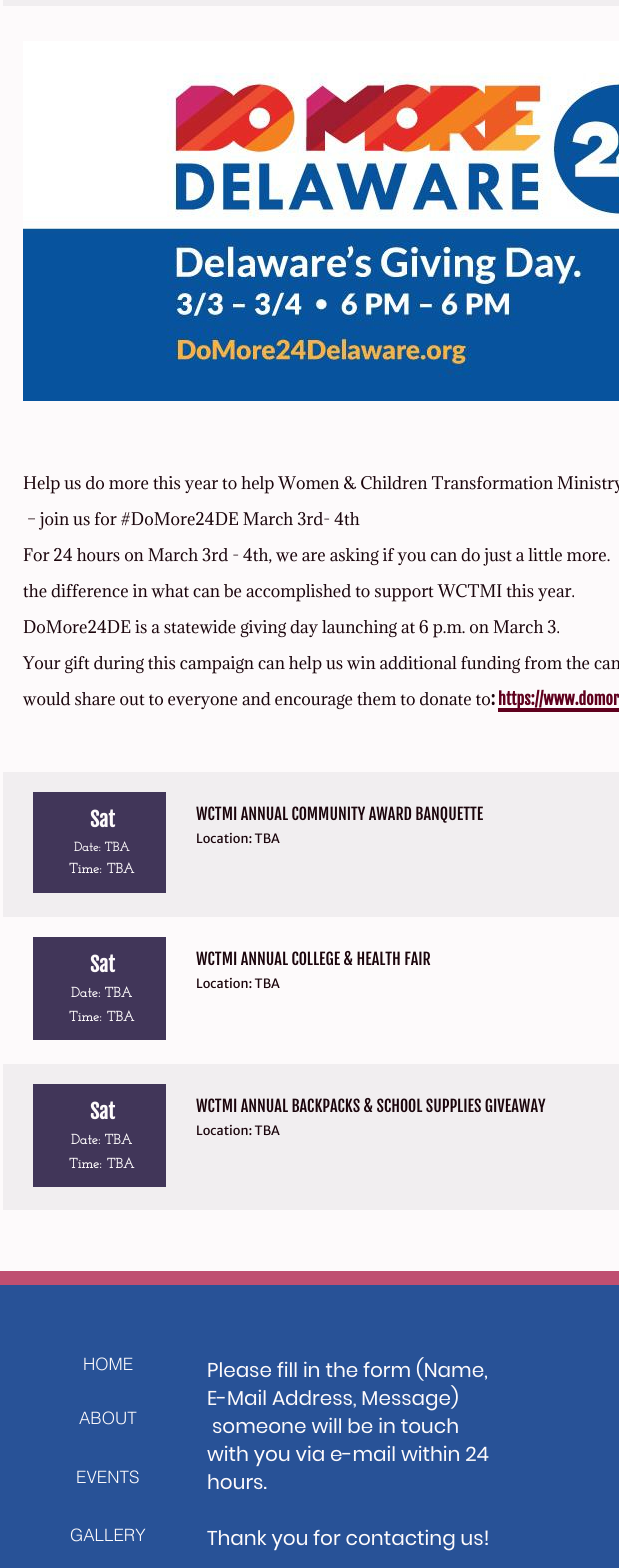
#include <cairo.h>
#include <math.h>
#include <stddef.h>

static cairo_t *ctx;

static void use_color(int r, int g, int b) {
    cairo_set_source_rgb(ctx, r / 255.0, g / 255.0, b / 255.0);
}

static void spaced_text(double x, double y, const char *s, double letter, double word) {
    cairo_move_to(ctx, x, y);
    while (*s) {
        char ch[5] = {0};
        int n = 0;
        do ch[n++] = *s++; while ((*s & 0xC0) == 0x80);
        cairo_show_text(ctx, ch);
        cairo_rel_move_to(ctx, letter + word * (*ch == ' '), 0);
    }
}

static void picture(const char *path, double x, double y, double w, double h) {
    cairo_surface_t *image = cairo_image_surface_create_from_png(path);
    cairo_save(ctx);
    cairo_set_source_surface(ctx, image, x, y);
    cairo_rectangle(ctx, x, y, w, h);
    cairo_fill(ctx);
    cairo_restore(ctx);
    cairo_surface_destroy(image);
}

int main(void) {
    cairo_surface_t *surface = cairo_image_surface_create(CAIRO_FORMAT_RGB24, 619, 1568);
    ctx = cairo_create(surface);
    cairo_font_options_t *options = cairo_font_options_create();
    cairo_font_options_set_hint_metrics(options, CAIRO_HINT_METRICS_OFF);
    cairo_font_options_set_hint_style(options, CAIRO_HINT_STYLE_NONE);
    cairo_set_font_options(ctx, options);
    cairo_set_miter_limit(ctx, 4);
    use_color(191, 79, 113);
    cairo_paint(ctx);
    use_color(253, 250, 251);
    cairo_rectangle(ctx, 0, 0, 619, 1271);
    cairo_fill(ctx);
    use_color(241, 238, 240);
    cairo_rectangle(ctx, 3, 0, 616, 6);
    cairo_fill(ctx);
    picture("img1.png", 23, 41, 596, 360);
    cairo_select_font_face(ctx, "Adamina", CAIRO_FONT_SLANT_NORMAL, CAIRO_FONT_WEIGHT_NORMAL);
    cairo_set_font_size(ctx, 16);
    use_color(27, 5, 12);
    cairo_move_to(ctx, 23, 489);
    cairo_show_text(ctx, "Help us do more this year to help Women & Children Transformation Ministry");
    cairo_move_to(ctx, 27, 525);
    cairo_show_text(ctx, "– join us for #DoMore24DE March 3rd- 4th");
    cairo_move_to(ctx, 23, 561);
    cairo_show_text(ctx, "For 24 hours on March 3rd - 4th, we are asking if you can do just a little more.");
    cairo_move_to(ctx, 23, 597);
    cairo_show_text(ctx, "the difference in what can be accomplished to support WCTMI this year.");
    cairo_move_to(ctx, 23, 633);
    cairo_show_text(ctx, "DoMore24DE is a statewide giving day launching at 6 p.m. on March 3.");
    cairo_move_to(ctx, 23, 669);
    cairo_show_text(ctx, "Your gift during this campaign can help us win additional funding from the cam");
    cairo_move_to(ctx, 23, 705);
    cairo_show_text(ctx, "would share out to everyone and encourage them to donate to");
    cairo_select_font_face(ctx, "Fjalla One", CAIRO_FONT_SLANT_NORMAL, CAIRO_FONT_WEIGHT_BOLD);
    cairo_move_to(ctx, 491, 705);
    cairo_show_text(ctx, ":");
    use_color(95, 0, 29);
    cairo_rectangle(ctx, 498, 708, 121, 4);
    cairo_fill(ctx);
    cairo_move_to(ctx, 498, 705);
    cairo_show_text(ctx, "https://www.domor");
    use_color(241, 238, 240);
    cairo_rectangle(ctx, 3, 772, 616, 145);
    cairo_fill(ctx);
    use_color(65, 54, 89);
    cairo_rectangle(ctx, 33, 792, 133, 101);
    cairo_fill(ctx);
    cairo_set_font_size(ctx, 20);
    use_color(253, 250, 251);
    cairo_move_to(ctx, 90, 827);
    cairo_show_text(ctx, "Sat");
    cairo_select_font_face(ctx, "Josefin Slab", CAIRO_FONT_SLANT_NORMAL, CAIRO_FONT_WEIGHT_BOLD);
    cairo_set_font_size(ctx, 12.75);
    cairo_move_to(ctx, 74, 851);
    cairo_show_text(ctx, "Date: TBA");
    cairo_set_font_size(ctx, 14);
    spaced_text(69, 873, "Time: TBA", 0, 1);
    cairo_select_font_face(ctx, "Fjalla One", CAIRO_FONT_SLANT_NORMAL, CAIRO_FONT_WEIGHT_NORMAL);
    cairo_set_font_size(ctx, 16);
    use_color(27, 5, 12);
    cairo_move_to(ctx, 196, 820);
    cairo_show_text(ctx, "WCTMI ANNUAL COMMUNITY AWARD BANQUETTE");
    cairo_select_font_face(ctx, "Merriweather Sans", CAIRO_FONT_SLANT_NORMAL, CAIRO_FONT_WEIGHT_NORMAL);
    cairo_set_font_size(ctx, 12.75);
    cairo_move_to(ctx, 196, 843);
    cairo_show_text(ctx, "Location: TBA");
    use_color(65, 54, 89);
    cairo_rectangle(ctx, 33, 937, 133, 103);
    cairo_fill(ctx);
    cairo_select_font_face(ctx, "Fjalla One", CAIRO_FONT_SLANT_NORMAL, CAIRO_FONT_WEIGHT_BOLD);
    cairo_set_font_size(ctx, 20);
    use_color(253, 250, 251);
    cairo_move_to(ctx, 90, 972);
    cairo_show_text(ctx, "Sat");
    cairo_select_font_face(ctx, "Josefin Slab", CAIRO_FONT_SLANT_NORMAL, CAIRO_FONT_WEIGHT_BOLD);
    cairo_set_font_size(ctx, 14);
    cairo_move_to(ctx, 71, 997);
    cairo_show_text(ctx, "Date: TBA");
    spaced_text(69, 1021, "Time: TBA", 0, 1);
    cairo_select_font_face(ctx, "Fjalla One", CAIRO_FONT_SLANT_NORMAL, CAIRO_FONT_WEIGHT_NORMAL);
    cairo_set_font_size(ctx, 16);
    use_color(27, 5, 12);
    cairo_move_to(ctx, 196, 965);
    cairo_show_text(ctx, "WCTMI ANNUAL COLLEGE & HEALTH FAIR");
    cairo_select_font_face(ctx, "Merriweather Sans", CAIRO_FONT_SLANT_NORMAL, CAIRO_FONT_WEIGHT_NORMAL);
    cairo_set_font_size(ctx, 12.75);
    cairo_move_to(ctx, 196, 988);
    cairo_show_text(ctx, "Location: TBA");
    use_color(241, 238, 240);
    cairo_rectangle(ctx, 3, 1064, 616, 146);
    cairo_fill(ctx);
    use_color(65, 54, 89);
    cairo_rectangle(ctx, 33, 1084, 133, 103);
    cairo_fill(ctx);
    cairo_select_font_face(ctx, "Fjalla One", CAIRO_FONT_SLANT_NORMAL, CAIRO_FONT_WEIGHT_BOLD);
    cairo_set_font_size(ctx, 20);
    use_color(253, 250, 251);
    cairo_move_to(ctx, 90, 1119);
    cairo_show_text(ctx, "Sat");
    cairo_select_font_face(ctx, "Josefin Slab", CAIRO_FONT_SLANT_NORMAL, CAIRO_FONT_WEIGHT_BOLD);
    cairo_set_font_size(ctx, 14);
    cairo_move_to(ctx, 71, 1144);
    cairo_show_text(ctx, "Date: TBA");
    spaced_text(69, 1168, "Time: TBA", 0, 1);
    cairo_select_font_face(ctx, "Fjalla One", CAIRO_FONT_SLANT_NORMAL, CAIRO_FONT_WEIGHT_NORMAL);
    cairo_set_font_size(ctx, 16);
    use_color(27, 5, 12);
    cairo_move_to(ctx, 196, 1112);
    cairo_show_text(ctx, "WCTMI ANNUAL BACKPACKS & SCHOOL SUPPLIES GIVEAWAY");
    cairo_select_font_face(ctx, "Merriweather Sans", CAIRO_FONT_SLANT_NORMAL, CAIRO_FONT_WEIGHT_NORMAL);
    cairo_set_font_size(ctx, 12.75);
    cairo_move_to(ctx, 196, 1135);
    cairo_show_text(ctx, "Location: TBA");
    use_color(40, 82, 151);
    cairo_rectangle(ctx, 0, 1285, 619, 283);
    cairo_fill(ctx);
    cairo_select_font_face(ctx, "helvetica Light", CAIRO_FONT_SLANT_NORMAL, CAIRO_FONT_WEIGHT_NORMAL);
    cairo_set_font_size(ctx, 17);
    use_color(253, 250, 251);
    cairo_move_to(ctx, 83, 1370);
    cairo_show_text(ctx, "HOME");
    cairo_select_font_face(ctx, "Poppins", CAIRO_FONT_SLANT_NORMAL, CAIRO_FONT_WEIGHT_NORMAL);
    cairo_set_font_size(ctx, 20);
    cairo_move_to(ctx, 207, 1377);
    cairo_show_text(ctx, "Please fill in the form (Name,");
    cairo_move_to(ctx, 207, 1405);
    cairo_show_text(ctx, "E-Mail Address, Message)");
    cairo_move_to(ctx, 212, 1433);
    cairo_show_text(ctx, "someone will be in touch");
    cairo_move_to(ctx, 207, 1461);
    cairo_show_text(ctx, "with you via e-mail within 24");
    cairo_move_to(ctx, 207, 1489);
    cairo_show_text(ctx, "hours.");
    cairo_move_to(ctx, 207, 1545);
    cairo_show_text(ctx, "Thank you for contacting us!");
    cairo_select_font_face(ctx, "helvetica Light", CAIRO_FONT_SLANT_NORMAL, CAIRO_FONT_WEIGHT_NORMAL);
    cairo_set_font_size(ctx, 17);
    cairo_move_to(ctx, 79, 1424);
    cairo_show_text(ctx, "ABOUT");
    cairo_move_to(ctx, 76, 1483);
    cairo_show_text(ctx, "EVENTS");
    cairo_move_to(ctx, 70, 1541);
    cairo_show_text(ctx, "GALLERY");
    cairo_surface_write_to_png(surface, "result.png");
    cairo_font_options_destroy(options);
    cairo_destroy(ctx);
    cairo_surface_destroy(surface);
    return 0;
}
